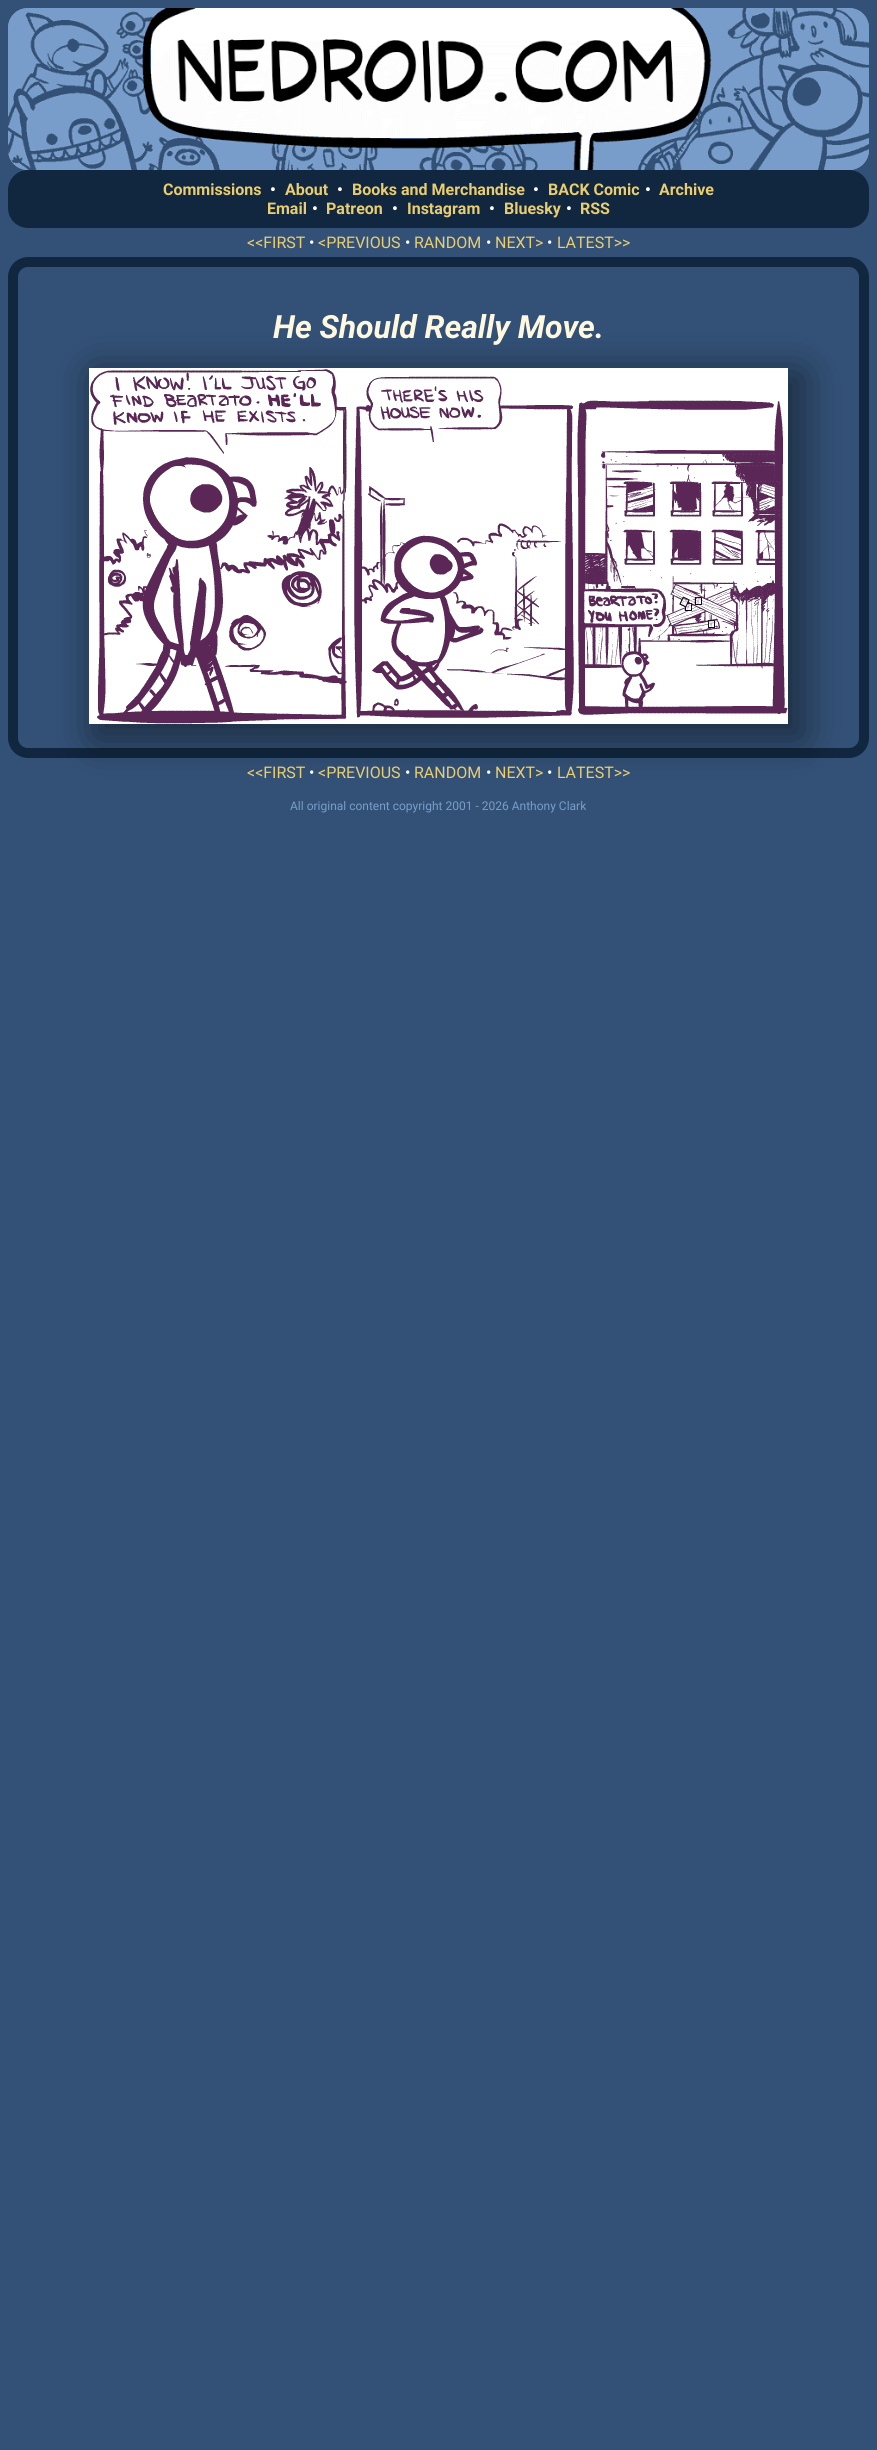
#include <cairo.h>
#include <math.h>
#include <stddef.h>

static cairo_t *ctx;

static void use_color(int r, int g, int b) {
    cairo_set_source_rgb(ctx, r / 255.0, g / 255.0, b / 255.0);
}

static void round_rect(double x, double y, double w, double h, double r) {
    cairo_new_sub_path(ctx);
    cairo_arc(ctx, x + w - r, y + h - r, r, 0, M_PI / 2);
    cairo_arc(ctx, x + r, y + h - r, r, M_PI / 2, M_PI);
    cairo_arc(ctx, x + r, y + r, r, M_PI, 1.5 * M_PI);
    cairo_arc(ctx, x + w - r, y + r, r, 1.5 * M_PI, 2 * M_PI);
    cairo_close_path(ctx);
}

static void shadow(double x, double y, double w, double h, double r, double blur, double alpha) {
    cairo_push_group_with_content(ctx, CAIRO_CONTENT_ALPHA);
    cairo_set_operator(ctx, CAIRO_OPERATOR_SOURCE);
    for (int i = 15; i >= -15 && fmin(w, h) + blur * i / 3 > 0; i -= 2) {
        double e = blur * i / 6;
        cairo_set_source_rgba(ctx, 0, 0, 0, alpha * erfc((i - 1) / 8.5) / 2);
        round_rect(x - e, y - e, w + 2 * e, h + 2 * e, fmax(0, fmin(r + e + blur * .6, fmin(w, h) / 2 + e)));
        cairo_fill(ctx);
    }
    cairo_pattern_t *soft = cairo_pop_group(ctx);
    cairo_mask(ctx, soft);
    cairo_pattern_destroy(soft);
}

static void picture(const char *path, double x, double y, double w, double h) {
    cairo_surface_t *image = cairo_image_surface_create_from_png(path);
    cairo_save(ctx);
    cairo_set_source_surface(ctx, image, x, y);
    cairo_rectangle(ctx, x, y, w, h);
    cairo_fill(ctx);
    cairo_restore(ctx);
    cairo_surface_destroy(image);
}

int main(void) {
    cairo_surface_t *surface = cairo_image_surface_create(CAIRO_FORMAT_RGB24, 877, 2450);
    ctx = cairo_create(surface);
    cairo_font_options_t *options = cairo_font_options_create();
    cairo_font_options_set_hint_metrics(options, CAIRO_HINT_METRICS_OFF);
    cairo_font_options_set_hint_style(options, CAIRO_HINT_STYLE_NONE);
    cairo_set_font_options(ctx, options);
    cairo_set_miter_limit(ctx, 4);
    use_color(51, 81, 119);
    cairo_paint(ctx);
    use_color(120, 157, 202);
    round_rect(8, 8, 861, 162, 20);
    cairo_fill(ctx);
    picture("img1.png", 8, 8, 861, 162);
    use_color(16, 39, 63);
    round_rect(8, 170, 861, 58, 20);
    cairo_fill(ctx);
    cairo_select_font_face(ctx, "Roboto", CAIRO_FONT_SLANT_NORMAL, CAIRO_FONT_WEIGHT_BOLD);
    cairo_set_font_size(ctx, 16);
    use_color(234, 205, 111);
    cairo_move_to(ctx, 163, 195);
    cairo_show_text(ctx, "Commissions");
    use_color(255, 255, 255);
    cairo_move_to(ctx, 270, 195);
    cairo_show_text(ctx, "•");
    use_color(234, 205, 111);
    cairo_move_to(ctx, 285, 195);
    cairo_show_text(ctx, "About");
    use_color(255, 255, 255);
    cairo_move_to(ctx, 337, 195);
    cairo_show_text(ctx, "•");
    use_color(234, 205, 111);
    cairo_move_to(ctx, 352, 195);
    cairo_show_text(ctx, "Books and Merchandise");
    use_color(255, 255, 255);
    cairo_move_to(ctx, 533, 195);
    cairo_show_text(ctx, "•");
    use_color(234, 205, 111);
    cairo_move_to(ctx, 548, 195);
    cairo_show_text(ctx, "BACK Comic");
    use_color(255, 255, 255);
    cairo_move_to(ctx, 645, 195);
    cairo_show_text(ctx, "•");
    use_color(234, 205, 111);
    cairo_move_to(ctx, 659, 195);
    cairo_show_text(ctx, "Archive");
    cairo_move_to(ctx, 267, 214);
    cairo_show_text(ctx, "Email");
    use_color(255, 255, 255);
    cairo_move_to(ctx, 312, 214);
    cairo_show_text(ctx, "•");
    use_color(234, 205, 111);
    cairo_move_to(ctx, 326, 214);
    cairo_show_text(ctx, "Patreon");
    use_color(255, 255, 255);
    cairo_move_to(ctx, 392, 214);
    cairo_show_text(ctx, "•");
    use_color(234, 205, 111);
    cairo_move_to(ctx, 407, 214);
    cairo_show_text(ctx, "Instagram");
    use_color(255, 255, 255);
    cairo_move_to(ctx, 489, 214);
    cairo_show_text(ctx, "•");
    use_color(234, 205, 111);
    cairo_move_to(ctx, 504, 214);
    cairo_show_text(ctx, "Bluesky");
    use_color(255, 255, 255);
    cairo_move_to(ctx, 566, 214);
    cairo_show_text(ctx, "•");
    use_color(234, 205, 111);
    cairo_move_to(ctx, 580, 214);
    cairo_show_text(ctx, "RSS");
    cairo_select_font_face(ctx, "Roboto", CAIRO_FONT_SLANT_NORMAL, CAIRO_FONT_WEIGHT_NORMAL);
    cairo_move_to(ctx, 247, 248);
    cairo_show_text(ctx, "<<FIRST");
    use_color(255, 255, 255);
    cairo_move_to(ctx, 309, 248);
    cairo_show_text(ctx, "•");
    use_color(234, 205, 111);
    cairo_move_to(ctx, 318, 248);
    cairo_show_text(ctx, "<PREVIOUS");
    use_color(255, 255, 255);
    cairo_move_to(ctx, 405, 248);
    cairo_show_text(ctx, "•");
    use_color(234, 205, 111);
    cairo_move_to(ctx, 414, 248);
    cairo_show_text(ctx, "RANDOM");
    use_color(255, 255, 255);
    cairo_move_to(ctx, 486, 248);
    cairo_show_text(ctx, "•");
    use_color(234, 205, 111);
    cairo_move_to(ctx, 495, 248);
    cairo_show_text(ctx, "NEXT>");
    use_color(255, 255, 255);
    cairo_move_to(ctx, 547, 248);
    cairo_show_text(ctx, "•");
    use_color(234, 205, 111);
    cairo_move_to(ctx, 557, 248);
    cairo_show_text(ctx, "LATEST>>");
    round_rect(13, 262, 851, 491, 15);
    use_color(16, 39, 63);
    cairo_set_line_width(ctx, 10);
    cairo_stroke(ctx);
    use_color(0, 0, 0);
    shadow(94, 373, 709, 366, 0, 21, 0.47);
    picture("img2.png", 89, 368, 699, 356);
    cairo_select_font_face(ctx, "Roboto", CAIRO_FONT_SLANT_ITALIC, CAIRO_FONT_WEIGHT_BOLD);
    cairo_set_font_size(ctx, 32);
    use_color(255, 248, 224);
    cairo_move_to(ctx, 273, 338);
    cairo_show_text(ctx, "He Should Really Move.");
    cairo_select_font_face(ctx, "Roboto", CAIRO_FONT_SLANT_NORMAL, CAIRO_FONT_WEIGHT_NORMAL);
    cairo_set_font_size(ctx, 16);
    use_color(234, 205, 111);
    cairo_move_to(ctx, 247, 778);
    cairo_show_text(ctx, "<<FIRST");
    use_color(255, 255, 255);
    cairo_move_to(ctx, 309, 778);
    cairo_show_text(ctx, "•");
    use_color(234, 205, 111);
    cairo_move_to(ctx, 318, 778);
    cairo_show_text(ctx, "<PREVIOUS");
    use_color(255, 255, 255);
    cairo_move_to(ctx, 405, 778);
    cairo_show_text(ctx, "•");
    use_color(234, 205, 111);
    cairo_move_to(ctx, 414, 778);
    cairo_show_text(ctx, "RANDOM");
    use_color(255, 255, 255);
    cairo_move_to(ctx, 486, 778);
    cairo_show_text(ctx, "•");
    use_color(234, 205, 111);
    cairo_move_to(ctx, 495, 778);
    cairo_show_text(ctx, "NEXT>");
    use_color(255, 255, 255);
    cairo_move_to(ctx, 547, 778);
    cairo_show_text(ctx, "•");
    use_color(234, 205, 111);
    cairo_move_to(ctx, 557, 778);
    cairo_show_text(ctx, "LATEST>>");
    cairo_set_font_size(ctx, 12);
    use_color(120, 157, 202);
    cairo_move_to(ctx, 290, 810);
    cairo_show_text(ctx, "All original content copyright 2001 - 2026 Anthony Clark");
    cairo_surface_write_to_png(surface, "result.png");
    cairo_font_options_destroy(options);
    cairo_destroy(ctx);
    cairo_surface_destroy(surface);
    return 0;
}
